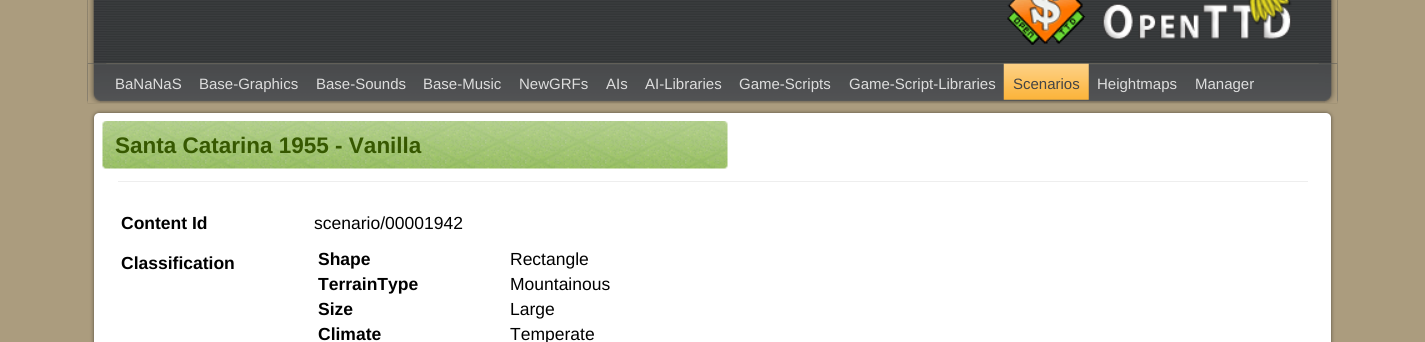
#include <cairo.h>
#include <math.h>
#include <stddef.h>

static cairo_t *ctx;

static void use_color(int r, int g, int b) {
    cairo_set_source_rgb(ctx, r / 255.0, g / 255.0, b / 255.0);
}

static void round_rect(double x, double y, double w, double h, double r) {
    cairo_new_sub_path(ctx);
    cairo_arc(ctx, x + w - r, y + h - r, r, 0, M_PI / 2);
    cairo_arc(ctx, x + r, y + h - r, r, M_PI / 2, M_PI);
    cairo_arc(ctx, x + r, y + r, r, M_PI, 1.5 * M_PI);
    cairo_arc(ctx, x + w - r, y + r, r, 1.5 * M_PI, 2 * M_PI);
    cairo_close_path(ctx);
}

static void shadow(double x, double y, double w, double h, double r, double blur, double alpha) {
    cairo_push_group_with_content(ctx, CAIRO_CONTENT_ALPHA);
    cairo_set_operator(ctx, CAIRO_OPERATOR_SOURCE);
    for (int i = 15; i >= -15 && fmin(w, h) + blur * i / 3 > 0; i -= 2) {
        double e = blur * i / 6;
        cairo_set_source_rgba(ctx, 0, 0, 0, alpha * erfc((i - 1) / 8.5) / 2);
        round_rect(x - e, y - e, w + 2 * e, h + 2 * e, fmax(0, fmin(r + e + blur * .6, fmin(w, h) / 2 + e)));
        cairo_fill(ctx);
    }
    cairo_pattern_t *soft = cairo_pop_group(ctx);
    cairo_mask(ctx, soft);
    cairo_pattern_destroy(soft);
}

static void picture(const char *path, double x, double y, double w, double h) {
    cairo_surface_t *image = cairo_image_surface_create_from_png(path);
    cairo_save(ctx);
    cairo_set_source_surface(ctx, image, x, y);
    cairo_rectangle(ctx, x, y, w, h);
    cairo_fill(ctx);
    cairo_restore(ctx);
    cairo_surface_destroy(image);
}

int main(void) {
    cairo_surface_t *surface = cairo_image_surface_create(CAIRO_FORMAT_RGB24, 1425, 342);
    ctx = cairo_create(surface);
    cairo_font_options_t *options = cairo_font_options_create();
    cairo_font_options_set_hint_metrics(options, CAIRO_HINT_METRICS_OFF);
    cairo_font_options_set_hint_style(options, CAIRO_HINT_STYLE_NONE);
    cairo_set_font_options(ctx, options);
    cairo_set_miter_limit(ctx, 4);
    use_color(171, 156, 126);
    cairo_paint(ctx);
    picture("img1.png", 87, 0, 1251, 64);
    picture("img2.png", 87, 0, 20, 64);
    picture("img3.png", 1007, 0, 79, 45);
    picture("img4.png", 1102, 0, 190, 39);
    picture("img5.png", 1318, 0, 20, 64);
    picture("img6.png", 87, 63, 1251, 41);
    picture("img7.png", 87, 63, 13, 40);
    cairo_select_font_face(ctx, "Liberation Sans", CAIRO_FONT_SLANT_NORMAL, CAIRO_FONT_WEIGHT_NORMAL);
    cairo_set_font_size(ctx, 15);
    use_color(221, 221, 221);
    cairo_move_to(ctx, 115, 89);
    cairo_show_text(ctx, "BaNaNaS");
    cairo_move_to(ctx, 199, 89);
    cairo_show_text(ctx, "Base-Graphics");
    cairo_move_to(ctx, 316, 89);
    cairo_show_text(ctx, "Base-Sounds");
    cairo_move_to(ctx, 423, 89);
    cairo_show_text(ctx, "Base-Music");
    cairo_move_to(ctx, 519, 89);
    cairo_show_text(ctx, "NewGRFs");
    cairo_move_to(ctx, 606, 89);
    cairo_show_text(ctx, "AIs");
    cairo_move_to(ctx, 645, 89);
    cairo_show_text(ctx, "AI-Libraries");
    cairo_move_to(ctx, 739, 89);
    cairo_show_text(ctx, "Game-Scripts");
    cairo_move_to(ctx, 849, 89);
    cairo_show_text(ctx, "Game-Script-Libraries");
    picture("img8.png", 1003, 63, 86, 37);
    use_color(68, 68, 68);
    cairo_move_to(ctx, 1013, 89);
    cairo_show_text(ctx, "Scenarios");
    use_color(221, 221, 221);
    cairo_move_to(ctx, 1097, 89);
    cairo_show_text(ctx, "Heightmaps");
    cairo_move_to(ctx, 1195, 89);
    cairo_show_text(ctx, "Manager");
    picture("img9.png", 1325, 63, 13, 40);
    use_color(0, 0, 0);
    shadow(94, 113, 1237, 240, 5, 2, 0.5);
    use_color(255, 255, 255);
    round_rect(94, 113, 1237, 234, 5);
    cairo_fill(ctx);
    picture("img10.png", 102, 121, 626, 48);
    cairo_select_font_face(ctx, "Liberation Sans", CAIRO_FONT_SLANT_NORMAL, CAIRO_FONT_WEIGHT_BOLD);
    cairo_set_font_size(ctx, 22.5);
    use_color(54, 88, 0);
    cairo_move_to(ctx, 115, 153);
    cairo_show_text(ctx, "Santa Catarina 1955 - Vanilla");
    use_color(238, 238, 238);
    cairo_rectangle(ctx, 118, 181, 1190, 1);
    cairo_fill(ctx);
    cairo_set_font_size(ctx, 17.5);
    use_color(0, 0, 0);
    cairo_move_to(ctx, 121, 229);
    cairo_show_text(ctx, "Content Id");
    cairo_select_font_face(ctx, "Liberation Sans", CAIRO_FONT_SLANT_NORMAL, CAIRO_FONT_WEIGHT_NORMAL);
    cairo_move_to(ctx, 314, 229);
    cairo_show_text(ctx, "scenario/00001942");
    cairo_select_font_face(ctx, "Liberation Sans", CAIRO_FONT_SLANT_NORMAL, CAIRO_FONT_WEIGHT_BOLD);
    cairo_move_to(ctx, 121, 269);
    cairo_show_text(ctx, "Classification");
    cairo_move_to(ctx, 318, 265);
    cairo_show_text(ctx, "Shape");
    cairo_select_font_face(ctx, "Liberation Sans", CAIRO_FONT_SLANT_NORMAL, CAIRO_FONT_WEIGHT_NORMAL);
    cairo_move_to(ctx, 510, 265);
    cairo_show_text(ctx, "Rectangle");
    cairo_select_font_face(ctx, "Liberation Sans", CAIRO_FONT_SLANT_NORMAL, CAIRO_FONT_WEIGHT_BOLD);
    cairo_move_to(ctx, 318, 290);
    cairo_show_text(ctx, "TerrainType");
    cairo_select_font_face(ctx, "Liberation Sans", CAIRO_FONT_SLANT_NORMAL, CAIRO_FONT_WEIGHT_NORMAL);
    cairo_move_to(ctx, 510, 290);
    cairo_show_text(ctx, "Mountainous");
    cairo_select_font_face(ctx, "Liberation Sans", CAIRO_FONT_SLANT_NORMAL, CAIRO_FONT_WEIGHT_BOLD);
    cairo_move_to(ctx, 318, 315);
    cairo_show_text(ctx, "Size");
    cairo_select_font_face(ctx, "Liberation Sans", CAIRO_FONT_SLANT_NORMAL, CAIRO_FONT_WEIGHT_NORMAL);
    cairo_move_to(ctx, 510, 315);
    cairo_show_text(ctx, "Large");
    cairo_select_font_face(ctx, "Liberation Sans", CAIRO_FONT_SLANT_NORMAL, CAIRO_FONT_WEIGHT_BOLD);
    cairo_move_to(ctx, 318, 340);
    cairo_show_text(ctx, "Climate");
    cairo_select_font_face(ctx, "Liberation Sans", CAIRO_FONT_SLANT_NORMAL, CAIRO_FONT_WEIGHT_NORMAL);
    cairo_move_to(ctx, 510, 340);
    cairo_show_text(ctx, "Temperate");
    cairo_surface_write_to_png(surface, "result.png");
    cairo_font_options_destroy(options);
    cairo_destroy(ctx);
    cairo_surface_destroy(surface);
    return 0;
}
